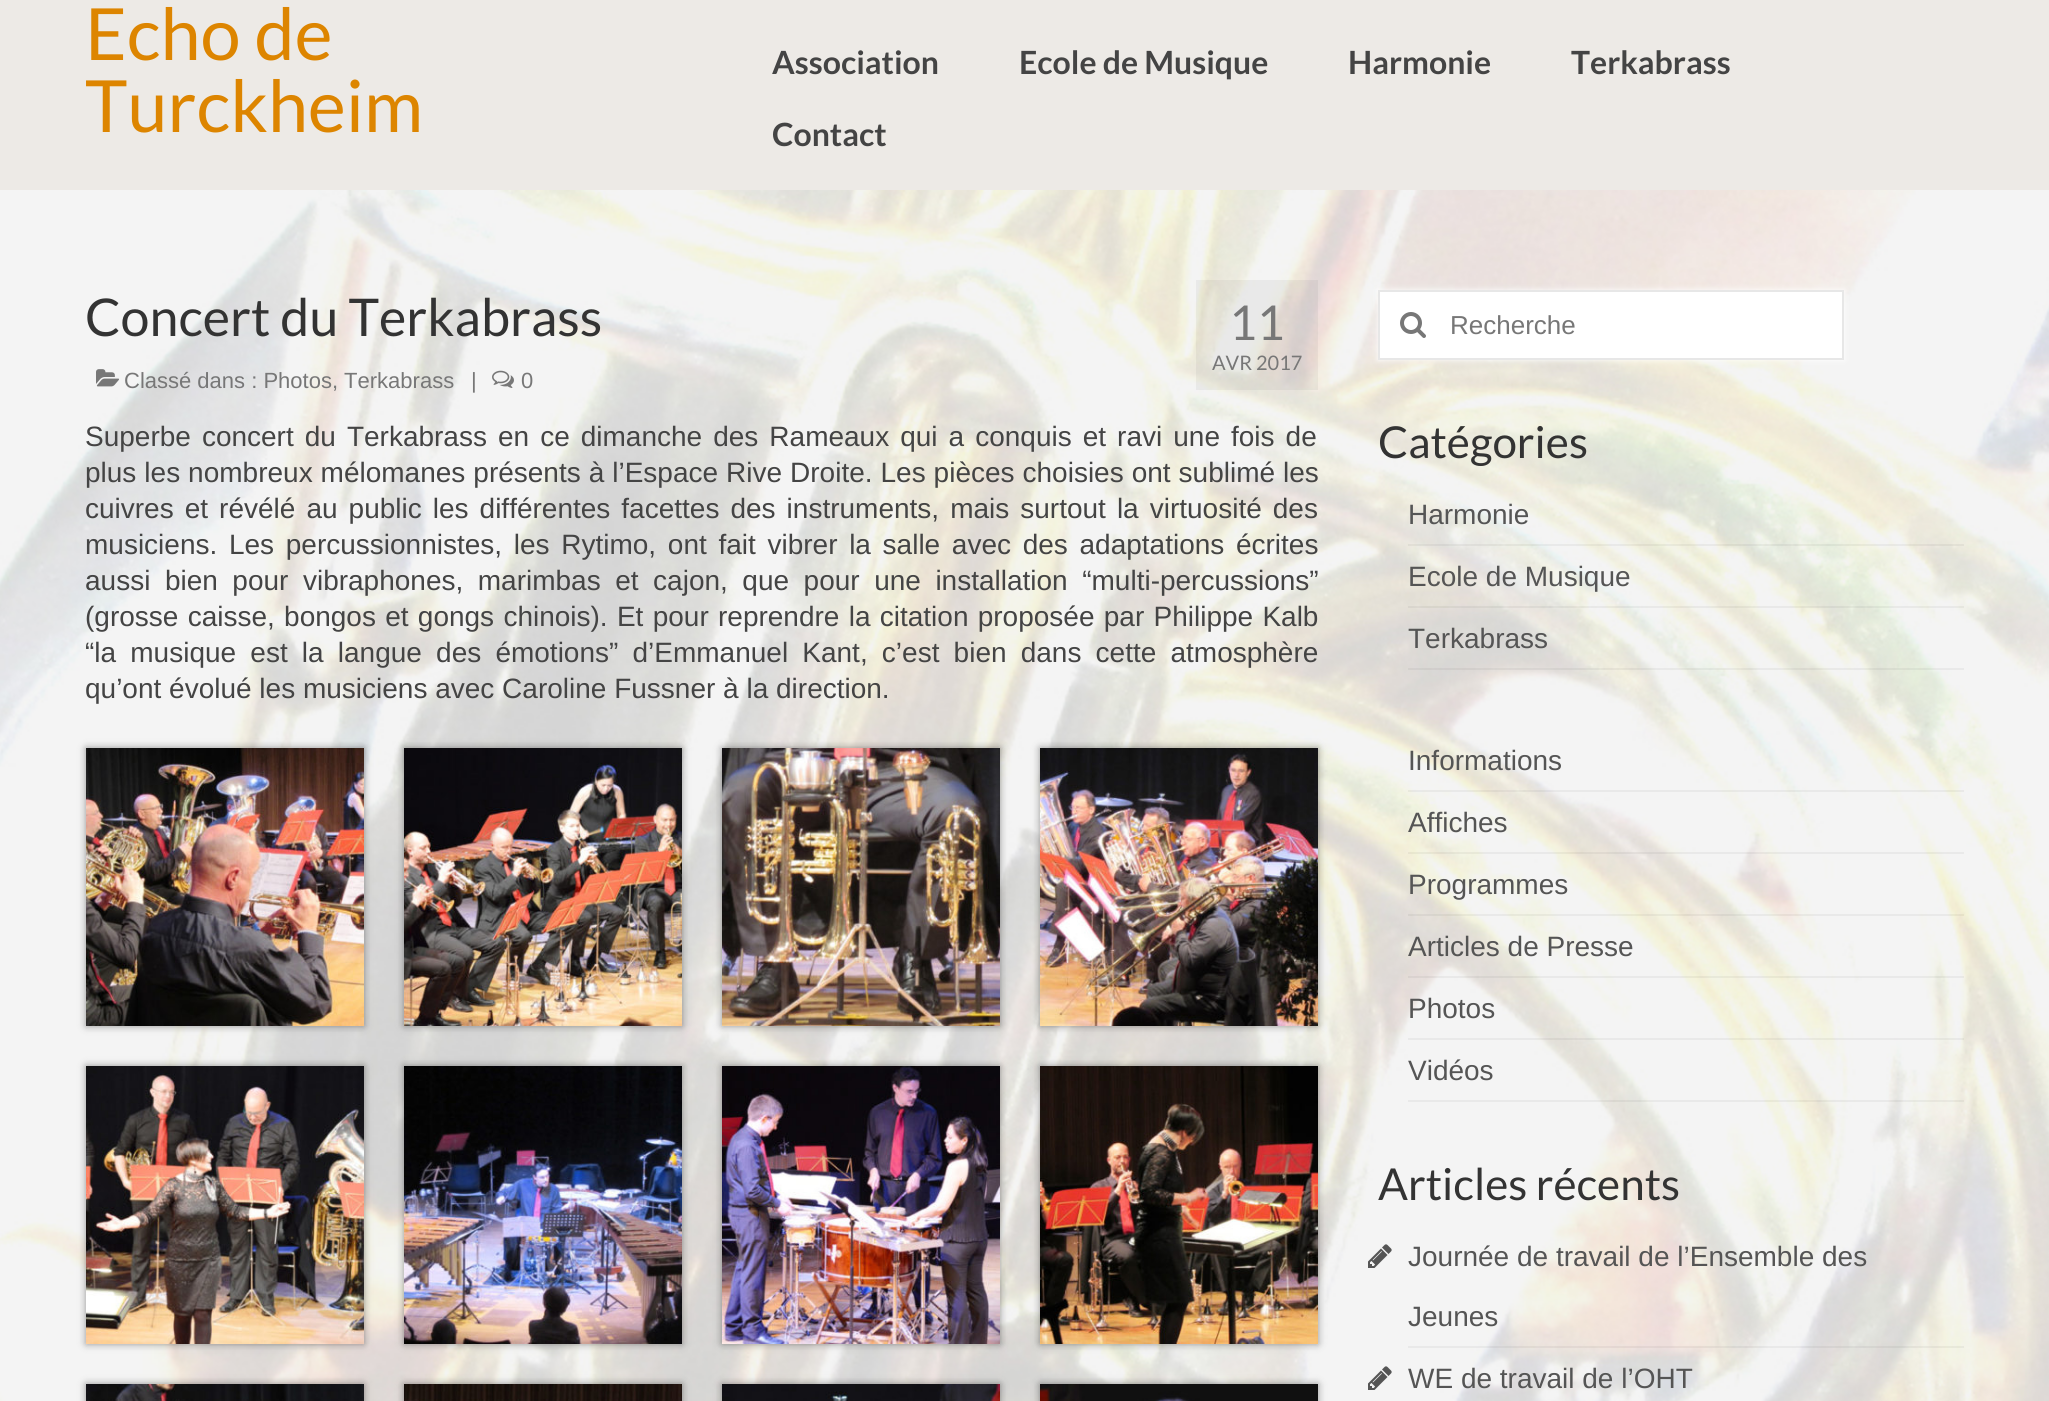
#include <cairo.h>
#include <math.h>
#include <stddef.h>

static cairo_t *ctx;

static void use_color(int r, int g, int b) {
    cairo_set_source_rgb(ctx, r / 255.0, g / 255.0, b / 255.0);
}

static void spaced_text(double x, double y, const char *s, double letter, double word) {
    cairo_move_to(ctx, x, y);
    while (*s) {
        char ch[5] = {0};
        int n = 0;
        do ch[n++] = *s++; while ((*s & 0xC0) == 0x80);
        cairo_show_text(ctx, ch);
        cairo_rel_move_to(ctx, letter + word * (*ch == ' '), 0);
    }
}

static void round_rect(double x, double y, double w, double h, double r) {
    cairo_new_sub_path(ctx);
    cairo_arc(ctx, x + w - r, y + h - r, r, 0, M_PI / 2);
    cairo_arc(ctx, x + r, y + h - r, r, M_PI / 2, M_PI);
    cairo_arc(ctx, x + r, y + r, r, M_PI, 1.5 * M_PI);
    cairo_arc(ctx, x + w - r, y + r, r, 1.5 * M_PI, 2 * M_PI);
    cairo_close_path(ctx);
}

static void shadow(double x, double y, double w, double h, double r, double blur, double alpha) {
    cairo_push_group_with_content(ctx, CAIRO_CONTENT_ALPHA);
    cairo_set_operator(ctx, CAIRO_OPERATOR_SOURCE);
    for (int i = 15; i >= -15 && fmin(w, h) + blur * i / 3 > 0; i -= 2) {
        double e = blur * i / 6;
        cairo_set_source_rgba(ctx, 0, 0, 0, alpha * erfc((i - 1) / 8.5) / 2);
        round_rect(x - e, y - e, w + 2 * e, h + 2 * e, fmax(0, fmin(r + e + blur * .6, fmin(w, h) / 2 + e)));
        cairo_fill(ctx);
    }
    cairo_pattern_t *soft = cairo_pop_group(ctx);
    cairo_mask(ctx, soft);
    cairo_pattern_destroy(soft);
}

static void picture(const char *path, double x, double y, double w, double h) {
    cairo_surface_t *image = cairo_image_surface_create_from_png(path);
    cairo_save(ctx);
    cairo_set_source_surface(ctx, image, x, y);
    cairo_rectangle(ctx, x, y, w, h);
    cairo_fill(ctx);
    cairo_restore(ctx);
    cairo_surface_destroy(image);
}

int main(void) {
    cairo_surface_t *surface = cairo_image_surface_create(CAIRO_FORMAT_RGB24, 2049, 1401);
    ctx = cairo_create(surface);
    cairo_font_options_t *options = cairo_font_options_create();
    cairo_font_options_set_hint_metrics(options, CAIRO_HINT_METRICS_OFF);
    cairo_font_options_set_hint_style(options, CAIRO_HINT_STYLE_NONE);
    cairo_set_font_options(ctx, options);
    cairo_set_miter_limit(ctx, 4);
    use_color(237, 234, 230);
    cairo_paint(ctx);
    cairo_select_font_face(ctx, "Lato", CAIRO_FONT_SLANT_NORMAL, CAIRO_FONT_WEIGHT_NORMAL);
    cairo_set_font_size(ctx, 72);
    use_color(221, 133, 0);
    cairo_move_to(ctx, 85, 60);
    cairo_show_text(ctx, "Echo de");
    cairo_move_to(ctx, 85, 132);
    cairo_show_text(ctx, "Turckheim");
    cairo_select_font_face(ctx, "Lato", CAIRO_FONT_SLANT_NORMAL, CAIRO_FONT_WEIGHT_BOLD);
    cairo_set_font_size(ctx, 32);
    use_color(68, 68, 68);
    cairo_move_to(ctx, 772, 74);
    cairo_show_text(ctx, "Association");
    cairo_move_to(ctx, 1019, 74);
    cairo_show_text(ctx, "Ecole de Musique");
    cairo_move_to(ctx, 1348, 74);
    cairo_show_text(ctx, "Harmonie");
    cairo_move_to(ctx, 1571, 74);
    cairo_show_text(ctx, "Terkabrass");
    cairo_move_to(ctx, 772, 146);
    cairo_show_text(ctx, "Contact");
    picture("img1.png", 0, 190, 2049, 1211);
    cairo_select_font_face(ctx, "Lato", CAIRO_FONT_SLANT_NORMAL, CAIRO_FONT_WEIGHT_NORMAL);
    cairo_set_font_size(ctx, 52);
    use_color(51, 51, 51);
    cairo_move_to(ctx, 85, 336);
    cairo_show_text(ctx, "Concert du Terkabrass");
    picture("img2.png", 96, 369, 23, 18);
    cairo_select_font_face(ctx, "Liberation Sans", CAIRO_FONT_SLANT_NORMAL, CAIRO_FONT_WEIGHT_NORMAL);
    cairo_set_font_size(ctx, 22);
    use_color(119, 119, 119);
    cairo_move_to(ctx, 124, 388);
    cairo_show_text(ctx, "Classé dans : Photos, Terkabrass");
    cairo_move_to(ctx, 471, 388);
    cairo_show_text(ctx, "|");
    picture("img3.png", 492, 370, 22, 18);
    cairo_move_to(ctx, 521, 388);
    cairo_show_text(ctx, "0");
    cairo_set_source_rgba(ctx, 0, 0, 0, 0.05);
    cairo_rectangle(ctx, 1196, 280, 122, 110);
    cairo_fill(ctx);
    cairo_select_font_face(ctx, "Lato", CAIRO_FONT_SLANT_NORMAL, CAIRO_FONT_WEIGHT_NORMAL);
    cairo_set_font_size(ctx, 48);
    use_color(119, 119, 119);
    cairo_move_to(ctx, 1229, 340);
    cairo_show_text(ctx, "11");
    cairo_set_font_size(ctx, 20);
    cairo_move_to(ctx, 1212, 370);
    cairo_show_text(ctx, "AVR 2017");
    cairo_select_font_face(ctx, "Liberation Sans", CAIRO_FONT_SLANT_NORMAL, CAIRO_FONT_WEIGHT_NORMAL);
    cairo_set_font_size(ctx, 28);
    use_color(68, 68, 68);
    spaced_text(85, 446, "Superbe concert du Terkabrass en ce dimanche des Rameaux qui a conquis et ravi une fois de", 0, 3.25);
    spaced_text(85, 482, "plus les nombreux mélomanes présents à l’Espace Rive Droite. Les pièces choisies ont sublimé les", 0, 0.2);
    spaced_text(85, 518, "cuivres et révélé au public les différentes facettes des instruments, mais surtout la virtuosité des", 0, 3.25);
    spaced_text(85, 554, "musiciens. Les percussionnistes, les Rytimo, ont fait vibrer la salle avec des adaptations écrites", 0, 3.9);
    spaced_text(85, 590, "aussi bien pour vibraphones, marimbas et cajon, que pour une installation “multi-percussions”", 0, 6.75);
    spaced_text(85, 626, "(grosse caisse, bongos et gongs chinois). Et pour reprendre la citation proposée par Philippe Kalb", 0, 1.5);
    spaced_text(85, 662, "“la musique est la langue des émotions” d’Emmanuel Kant, c’est bien dans cette atmosphère", 0, 6.4);
    cairo_move_to(ctx, 85, 698);
    cairo_show_text(ctx, "qu’ont évolué les musiciens avec Caroline Fussner à la direction.");
    use_color(0, 0, 0);
    shadow(86, 748, 278, 278, 0, 4, 0.4);
    picture("img4.png", 86, 748, 278, 278);
    shadow(404, 748, 278, 278, 0, 4, 0.4);
    picture("img5.png", 404, 748, 278, 278);
    shadow(722, 748, 278, 278, 0, 4, 0.4);
    picture("img6.png", 722, 748, 278, 278);
    shadow(1040, 748, 278, 278, 0, 4, 0.4);
    picture("img7.png", 1040, 748, 278, 278);
    shadow(86, 1066, 278, 278, 0, 4, 0.4);
    picture("img8.png", 86, 1066, 278, 278);
    shadow(404, 1066, 278, 278, 0, 4, 0.4);
    picture("img9.png", 404, 1066, 278, 278);
    shadow(722, 1066, 278, 278, 0, 4, 0.4);
    picture("img10.png", 722, 1066, 278, 278);
    shadow(1040, 1066, 278, 278, 0, 4, 0.4);
    picture("img11.png", 1040, 1066, 278, 278);
    shadow(86, 1384, 278, 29, 0, 4, 0.4);
    picture("img12.png", 86, 1384, 278, 17);
    shadow(404, 1384, 278, 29, 0, 4, 0.4);
    picture("img13.png", 404, 1384, 278, 17);
    shadow(722, 1384, 278, 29, 0, 4, 0.4);
    picture("img14.png", 722, 1384, 278, 17);
    shadow(1040, 1384, 278, 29, 0, 4, 0.4);
    picture("img15.png", 1040, 1384, 278, 17);
    use_color(255, 255, 255);
    shadow(1378, 290, 466, 70, 0, 3, 1);
    use_color(255, 255, 255);
    cairo_rectangle(ctx, 1379, 291, 464, 68);
    cairo_fill_preserve(ctx);
    use_color(231, 231, 231);
    cairo_stroke(ctx);
    picture("img16.png", 1400, 312, 26, 26);
    cairo_set_font_size(ctx, 26);
    use_color(119, 119, 119);
    cairo_move_to(ctx, 1450, 334);
    cairo_show_text(ctx, "Recherche");
    cairo_select_font_face(ctx, "Lato", CAIRO_FONT_SLANT_NORMAL, CAIRO_FONT_WEIGHT_NORMAL);
    cairo_set_font_size(ctx, 44);
    use_color(51, 51, 51);
    cairo_move_to(ctx, 1378, 458);
    cairo_show_text(ctx, "Catégories");
    cairo_set_source_rgba(ctx, 0, 0, 0, 0.05);
    cairo_rectangle(ctx, 1408, 544, 556, 2);
    cairo_fill(ctx);
    cairo_select_font_face(ctx, "Liberation Sans", CAIRO_FONT_SLANT_NORMAL, CAIRO_FONT_WEIGHT_NORMAL);
    cairo_set_font_size(ctx, 28);
    use_color(85, 85, 85);
    cairo_move_to(ctx, 1408, 524);
    cairo_show_text(ctx, "Harmonie");
    cairo_set_source_rgba(ctx, 0, 0, 0, 0.05);
    cairo_rectangle(ctx, 1408, 606, 556, 2);
    cairo_fill(ctx);
    use_color(85, 85, 85);
    cairo_move_to(ctx, 1408, 586);
    cairo_show_text(ctx, "Ecole de Musique");
    cairo_set_source_rgba(ctx, 0, 0, 0, 0.05);
    cairo_rectangle(ctx, 1408, 668, 556, 2);
    cairo_fill(ctx);
    use_color(85, 85, 85);
    cairo_move_to(ctx, 1408, 648);
    cairo_show_text(ctx, "Terkabrass");
    cairo_set_source_rgba(ctx, 0, 0, 0, 0.05);
    cairo_rectangle(ctx, 1408, 790, 556, 2);
    cairo_fill(ctx);
    use_color(85, 85, 85);
    cairo_move_to(ctx, 1408, 770);
    cairo_show_text(ctx, "Informations");
    cairo_set_source_rgba(ctx, 0, 0, 0, 0.05);
    cairo_rectangle(ctx, 1408, 852, 556, 2);
    cairo_fill(ctx);
    use_color(85, 85, 85);
    cairo_move_to(ctx, 1408, 832);
    cairo_show_text(ctx, "Affiches");
    cairo_set_source_rgba(ctx, 0, 0, 0, 0.05);
    cairo_rectangle(ctx, 1408, 914, 556, 2);
    cairo_fill(ctx);
    use_color(85, 85, 85);
    cairo_move_to(ctx, 1408, 894);
    cairo_show_text(ctx, "Programmes");
    cairo_set_source_rgba(ctx, 0, 0, 0, 0.05);
    cairo_rectangle(ctx, 1408, 976, 556, 2);
    cairo_fill(ctx);
    use_color(85, 85, 85);
    cairo_move_to(ctx, 1408, 956);
    cairo_show_text(ctx, "Articles de Presse");
    cairo_set_source_rgba(ctx, 0, 0, 0, 0.05);
    cairo_rectangle(ctx, 1408, 1038, 556, 2);
    cairo_fill(ctx);
    use_color(85, 85, 85);
    cairo_move_to(ctx, 1408, 1018);
    cairo_show_text(ctx, "Photos");
    cairo_set_source_rgba(ctx, 0, 0, 0, 0.05);
    cairo_rectangle(ctx, 1408, 1100, 556, 2);
    cairo_fill(ctx);
    use_color(85, 85, 85);
    cairo_move_to(ctx, 1408, 1080);
    cairo_show_text(ctx, "Vidéos");
    cairo_select_font_face(ctx, "Lato", CAIRO_FONT_SLANT_NORMAL, CAIRO_FONT_WEIGHT_NORMAL);
    cairo_set_font_size(ctx, 44);
    use_color(51, 51, 51);
    cairo_move_to(ctx, 1378, 1200);
    cairo_show_text(ctx, "Articles récents");
    cairo_set_source_rgba(ctx, 0, 0, 0, 0.05);
    cairo_rectangle(ctx, 1408, 1346, 556, 2);
    cairo_fill(ctx);
    picture("img17.png", 1368, 1244, 24, 24);
    cairo_select_font_face(ctx, "Liberation Sans", CAIRO_FONT_SLANT_NORMAL, CAIRO_FONT_WEIGHT_NORMAL);
    cairo_set_font_size(ctx, 28);
    use_color(85, 85, 85);
    cairo_move_to(ctx, 1408, 1266);
    cairo_show_text(ctx, "Journée de travail de l’Ensemble des");
    cairo_move_to(ctx, 1408, 1326);
    cairo_show_text(ctx, "Jeunes");
    picture("img17.png", 1368, 1366, 24, 24);
    cairo_move_to(ctx, 1408, 1388);
    cairo_show_text(ctx, "WE de travail de l’OHT");
    cairo_surface_write_to_png(surface, "result.png");
    cairo_font_options_destroy(options);
    cairo_destroy(ctx);
    cairo_surface_destroy(surface);
    return 0;
}
